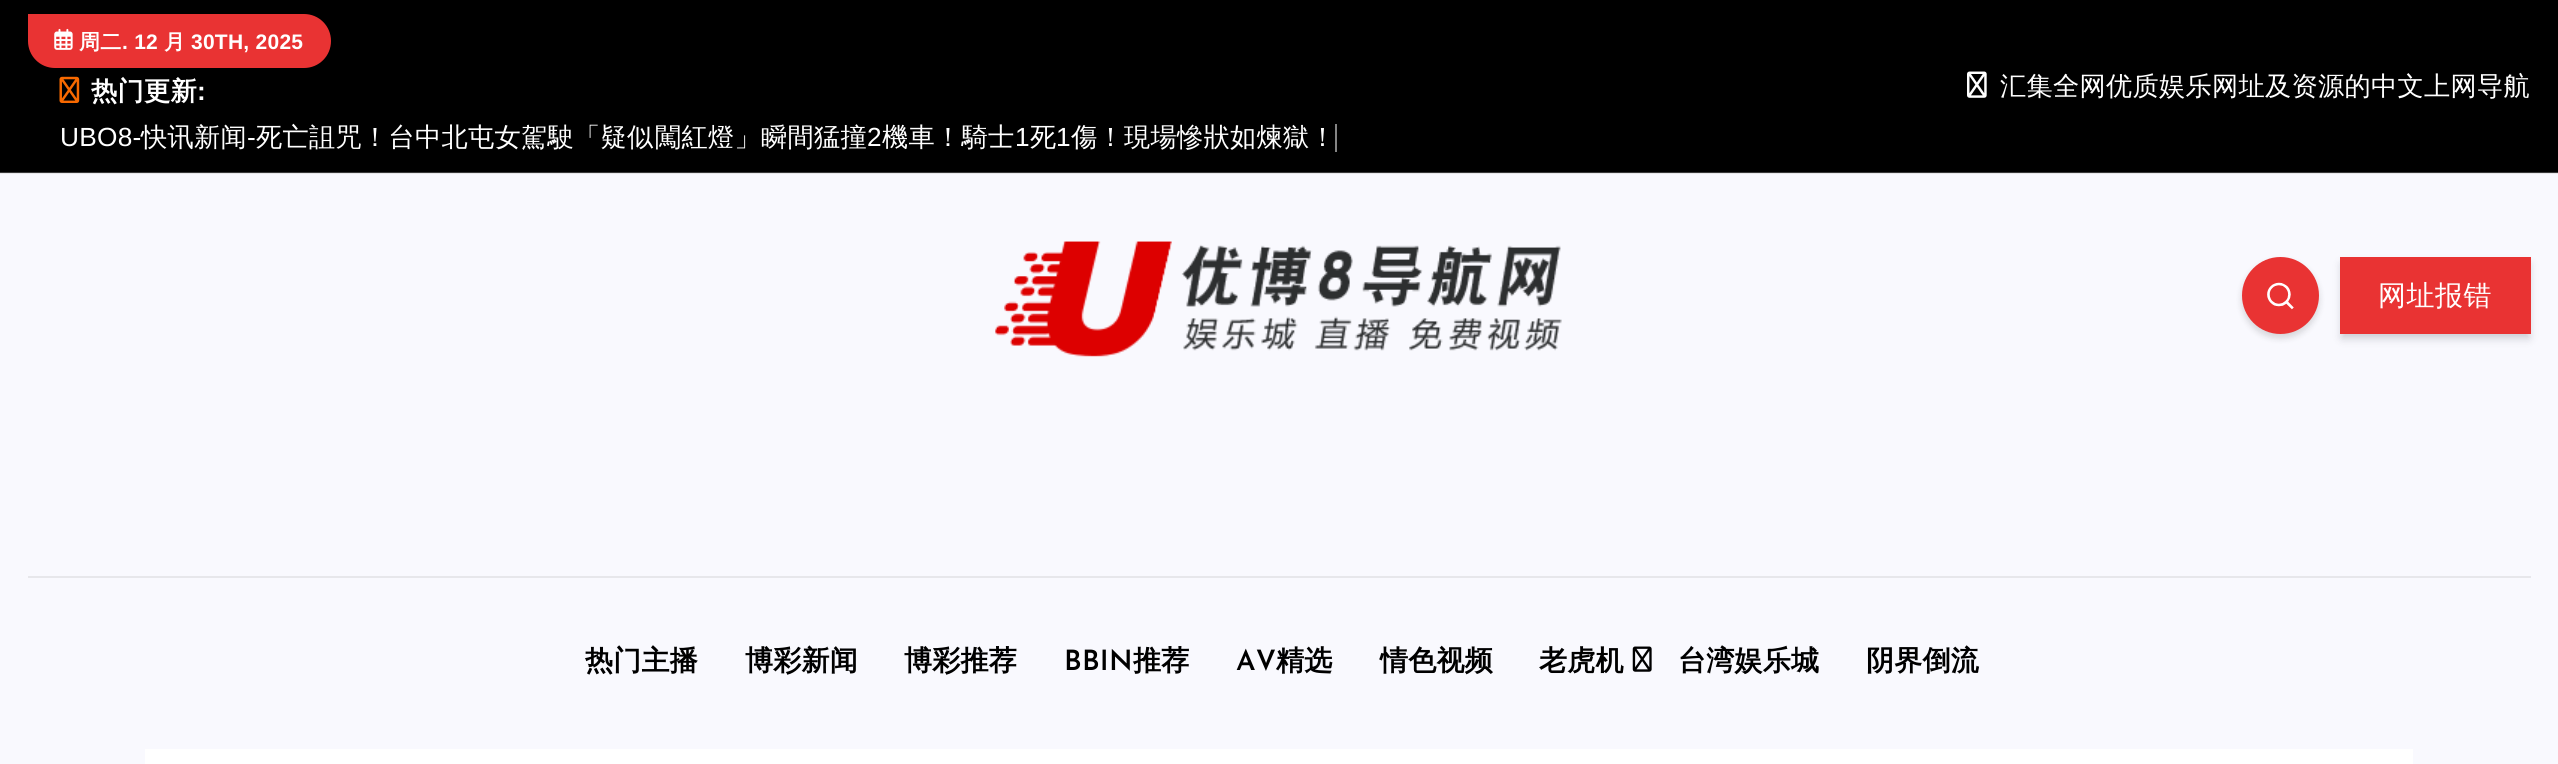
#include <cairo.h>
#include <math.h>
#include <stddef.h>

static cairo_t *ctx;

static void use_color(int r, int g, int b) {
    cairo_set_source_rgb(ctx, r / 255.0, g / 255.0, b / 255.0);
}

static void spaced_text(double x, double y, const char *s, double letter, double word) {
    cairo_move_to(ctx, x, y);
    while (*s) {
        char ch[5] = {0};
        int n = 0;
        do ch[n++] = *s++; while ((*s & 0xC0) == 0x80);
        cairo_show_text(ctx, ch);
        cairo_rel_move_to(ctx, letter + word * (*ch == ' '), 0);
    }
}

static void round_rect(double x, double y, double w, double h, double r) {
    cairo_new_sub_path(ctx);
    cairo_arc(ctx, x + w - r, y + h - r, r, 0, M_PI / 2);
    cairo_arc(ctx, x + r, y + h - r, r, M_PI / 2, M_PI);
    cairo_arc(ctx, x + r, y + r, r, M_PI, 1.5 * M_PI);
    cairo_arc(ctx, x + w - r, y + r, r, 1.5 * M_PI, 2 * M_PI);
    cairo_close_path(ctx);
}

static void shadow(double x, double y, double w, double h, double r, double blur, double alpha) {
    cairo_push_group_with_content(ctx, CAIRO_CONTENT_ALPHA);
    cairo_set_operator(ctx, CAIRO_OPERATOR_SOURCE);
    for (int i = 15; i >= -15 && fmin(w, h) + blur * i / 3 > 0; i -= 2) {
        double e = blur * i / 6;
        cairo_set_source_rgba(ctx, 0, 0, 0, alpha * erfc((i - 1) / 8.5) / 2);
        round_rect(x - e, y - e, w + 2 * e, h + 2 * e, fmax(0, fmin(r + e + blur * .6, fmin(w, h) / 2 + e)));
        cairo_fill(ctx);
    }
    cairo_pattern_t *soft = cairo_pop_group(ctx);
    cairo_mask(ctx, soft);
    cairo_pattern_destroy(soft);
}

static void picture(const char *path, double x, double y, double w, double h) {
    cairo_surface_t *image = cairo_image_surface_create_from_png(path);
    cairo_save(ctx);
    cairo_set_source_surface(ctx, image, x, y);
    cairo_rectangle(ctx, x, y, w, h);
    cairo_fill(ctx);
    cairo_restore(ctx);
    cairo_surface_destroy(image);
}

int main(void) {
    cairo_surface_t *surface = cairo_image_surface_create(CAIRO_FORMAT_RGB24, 2558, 764);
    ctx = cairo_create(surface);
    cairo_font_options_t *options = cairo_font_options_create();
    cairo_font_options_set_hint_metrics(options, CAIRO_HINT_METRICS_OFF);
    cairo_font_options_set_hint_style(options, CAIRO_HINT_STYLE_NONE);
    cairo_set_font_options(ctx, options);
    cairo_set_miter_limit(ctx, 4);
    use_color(249, 249, 254);
    cairo_paint(ctx);
    use_color(231, 231, 234);
    cairo_rectangle(ctx, 0, 173, 2558, 1);
    cairo_fill(ctx);
    use_color(0, 0, 0);
    cairo_rectangle(ctx, 0, 0, 2558, 172);
    cairo_fill(ctx);
    use_color(57, 57, 57);
    cairo_rectangle(ctx, 0, 172, 2558, 1);
    cairo_fill(ctx);
    use_color(233, 51, 51);
    cairo_new_path(ctx);
    cairo_move_to(ctx, 28, 14);
    cairo_line_to(ctx, 304, 14);
    cairo_curve_to(ctx, 319, 14, 331, 26, 331, 41);
    cairo_curve_to(ctx, 331, 56, 319, 68, 304, 68);
    cairo_line_to(ctx, 55, 68);
    cairo_curve_to(ctx, 40, 68, 28, 56, 28, 41);
    cairo_close_path(ctx);
    cairo_fill(ctx);
    picture("img1.png", 54, 28, 19, 22);
    cairo_select_font_face(ctx, "WenQuanYi Zen Hei", CAIRO_FONT_SLANT_NORMAL, CAIRO_FONT_WEIGHT_BOLD);
    cairo_set_font_size(ctx, 21);
    use_color(255, 255, 255);
    spaced_text(79, 49, "周二", 0.25, 0);
    cairo_select_font_face(ctx, "Liberation Sans", CAIRO_FONT_SLANT_NORMAL, CAIRO_FONT_WEIGHT_BOLD);
    spaced_text(122, 49, ". 12", 0.25, 0);
    cairo_select_font_face(ctx, "WenQuanYi Zen Hei", CAIRO_FONT_SLANT_NORMAL, CAIRO_FONT_WEIGHT_BOLD);
    spaced_text(164, 49, "月", 0.25, 0);
    cairo_select_font_face(ctx, "Liberation Sans", CAIRO_FONT_SLANT_NORMAL, CAIRO_FONT_WEIGHT_BOLD);
    spaced_text(191, 49, "30TH, 2025", 0.25, 0);
    picture("img2.png", 59, 76, 21, 27);
    cairo_select_font_face(ctx, "WenQuanYi Zen Hei", CAIRO_FONT_SLANT_NORMAL, CAIRO_FONT_WEIGHT_BOLD);
    cairo_set_font_size(ctx, 26.25);
    spaced_text(91, 100, "热门更新", 0.25, 0);
    cairo_select_font_face(ctx, "Liberation Sans", CAIRO_FONT_SLANT_NORMAL, CAIRO_FONT_WEIGHT_BOLD);
    spaced_text(197, 100, ":", 0.25, 0);
    cairo_select_font_face(ctx, "Liberation Sans", CAIRO_FONT_SLANT_NORMAL, CAIRO_FONT_WEIGHT_NORMAL);
    spaced_text(60, 146, "UBO8-", 0.25, 0);
    cairo_select_font_face(ctx, "WenQuanYi Zen Hei Medium", CAIRO_FONT_SLANT_NORMAL, CAIRO_FONT_WEIGHT_NORMAL);
    spaced_text(141, 146, "快讯新闻", 0.25, 0);
    cairo_select_font_face(ctx, "Liberation Sans", CAIRO_FONT_SLANT_NORMAL, CAIRO_FONT_WEIGHT_NORMAL);
    spaced_text(247, 146, "-", 0.25, 0);
    cairo_select_font_face(ctx, "WenQuanYi Zen Hei Medium", CAIRO_FONT_SLANT_NORMAL, CAIRO_FONT_WEIGHT_NORMAL);
    spaced_text(256, 146, "死亡詛咒！台中北屯女駕駛「疑似", 0.25, 0);
    spaced_text(655, 146, "闖紅燈」瞬間猛撞", 0.25, 0);
    cairo_select_font_face(ctx, "Liberation Sans", CAIRO_FONT_SLANT_NORMAL, CAIRO_FONT_WEIGHT_NORMAL);
    spaced_text(867, 146, "2", 0.25, 0);
    cairo_select_font_face(ctx, "WenQuanYi Zen Hei Medium", CAIRO_FONT_SLANT_NORMAL, CAIRO_FONT_WEIGHT_NORMAL);
    spaced_text(882, 146, "機車！騎士", 0.25, 0);
    cairo_select_font_face(ctx, "Liberation Sans", CAIRO_FONT_SLANT_NORMAL, CAIRO_FONT_WEIGHT_NORMAL);
    spaced_text(1015, 146, "1", 0.25, 0);
    cairo_select_font_face(ctx, "WenQuanYi Zen Hei Medium", CAIRO_FONT_SLANT_NORMAL, CAIRO_FONT_WEIGHT_NORMAL);
    spaced_text(1030, 146, "死", 0.25, 0);
    cairo_select_font_face(ctx, "Liberation Sans", CAIRO_FONT_SLANT_NORMAL, CAIRO_FONT_WEIGHT_NORMAL);
    spaced_text(1056, 146, "1", 0.25, 0);
    cairo_select_font_face(ctx, "WenQuanYi Zen Hei Medium", CAIRO_FONT_SLANT_NORMAL, CAIRO_FONT_WEIGHT_NORMAL);
    spaced_text(1071, 146, "傷！現場慘狀如煉獄！", 0.25, 0);
    use_color(132, 132, 132);
    cairo_rectangle(ctx, 1335, 124, 2, 28);
    cairo_fill(ctx);
    picture("img3.png", 1967, 71, 20, 27);
    use_color(255, 255, 255);
    spaced_text(2000, 95, "汇集全网优质娱乐网址及资源的中文上网导航", 0.25, 0);
    picture("img4.png", 995, 241, 567, 116);
    use_color(0, 0, 0);
    shadow(2242, 261, 77, 77, 38.5, 3.5, 0.15);
    use_color(233, 51, 51);
    cairo_arc(ctx, 2280.5, 295.5, 38.5, 0, 2 * M_PI);
    cairo_fill(ctx);
    picture("img5.png", 2267, 282, 27, 28);
    use_color(7, 10, 25);
    shadow(2342, 264, 187, 74, 0, 4.5, 0.2);
    use_color(233, 51, 51);
    cairo_rectangle(ctx, 2340, 257, 191, 77);
    cairo_fill(ctx);
    cairo_set_font_size(ctx, 28);
    use_color(255, 255, 255);
    spaced_text(2378, 305, "网址报错", 0.5, 0);
    use_color(231, 231, 235);
    cairo_rectangle(ctx, 28, 576, 2503, 2);
    cairo_fill(ctx);
    cairo_select_font_face(ctx, "WenQuanYi Zen Hei", CAIRO_FONT_SLANT_NORMAL, CAIRO_FONT_WEIGHT_BOLD);
    use_color(0, 0, 0);
    spaced_text(585, 670, "热门主播", 0.25, 0);
    spaced_text(745, 670, "博彩新闻", 0.25, 0);
    spaced_text(904, 670, "博彩推荐", 0.25, 0);
    cairo_select_font_face(ctx, "Josefin Sans SemiBold", CAIRO_FONT_SLANT_NORMAL, CAIRO_FONT_WEIGHT_NORMAL);
    spaced_text(1064, 670, "BBIN", 0.25, 0);
    cairo_select_font_face(ctx, "WenQuanYi Zen Hei", CAIRO_FONT_SLANT_NORMAL, CAIRO_FONT_WEIGHT_BOLD);
    spaced_text(1133, 670, "推荐", 0.25, 0);
    cairo_select_font_face(ctx, "Josefin Sans SemiBold", CAIRO_FONT_SLANT_NORMAL, CAIRO_FONT_WEIGHT_NORMAL);
    spaced_text(1236, 670, "AV", 0.25, 0);
    cairo_select_font_face(ctx, "WenQuanYi Zen Hei", CAIRO_FONT_SLANT_NORMAL, CAIRO_FONT_WEIGHT_BOLD);
    spaced_text(1276, 670, "精选", 0.25, 0);
    spaced_text(1380, 670, "情色视频", 0.25, 0);
    spaced_text(1539, 670, "老虎机", 0.25, 0);
    picture("img6.png", 1632, 646, 20, 26);
    spaced_text(1678, 670, "台湾娱乐城", 0.25, 0);
    spaced_text(1866, 670, "阴界倒流", 0.25, 0);
    use_color(255, 255, 255);
    cairo_rectangle(ctx, 145, 749, 2268, 15);
    cairo_fill(ctx);
    cairo_surface_write_to_png(surface, "result.png");
    cairo_font_options_destroy(options);
    cairo_destroy(ctx);
    cairo_surface_destroy(surface);
    return 0;
}
